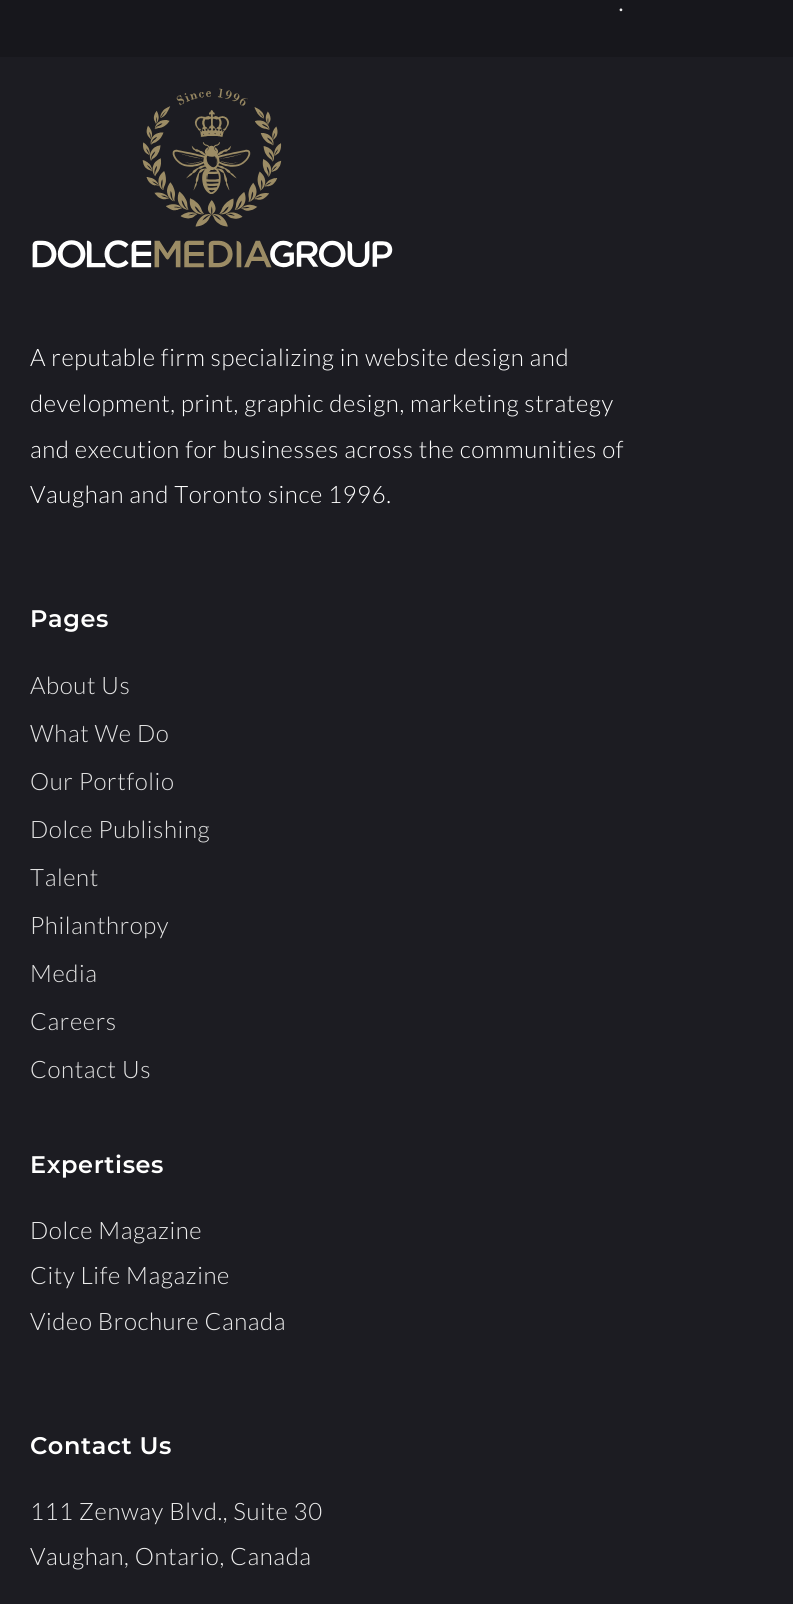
#include <cairo.h>
#include <math.h>
#include <stddef.h>

static cairo_t *ctx;

static void use_color(int r, int g, int b) {
    cairo_set_source_rgb(ctx, r / 255.0, g / 255.0, b / 255.0);
}

static void spaced_text(double x, double y, const char *s, double letter, double word) {
    cairo_move_to(ctx, x, y);
    while (*s) {
        char ch[5] = {0};
        int n = 0;
        do ch[n++] = *s++; while ((*s & 0xC0) == 0x80);
        cairo_show_text(ctx, ch);
        cairo_rel_move_to(ctx, letter + word * (*ch == ' '), 0);
    }
}

static void picture(const char *path, double x, double y, double w, double h) {
    cairo_surface_t *image = cairo_image_surface_create_from_png(path);
    cairo_save(ctx);
    cairo_set_source_surface(ctx, image, x, y);
    cairo_rectangle(ctx, x, y, w, h);
    cairo_fill(ctx);
    cairo_restore(ctx);
    cairo_surface_destroy(image);
}

int main(void) {
    cairo_surface_t *surface = cairo_image_surface_create(CAIRO_FORMAT_RGB24, 793, 1604);
    ctx = cairo_create(surface);
    cairo_font_options_t *options = cairo_font_options_create();
    cairo_font_options_set_hint_metrics(options, CAIRO_HINT_METRICS_OFF);
    cairo_font_options_set_hint_style(options, CAIRO_HINT_STYLE_NONE);
    cairo_set_font_options(ctx, options);
    cairo_set_miter_limit(ctx, 4);
    use_color(23, 23, 28);
    cairo_paint(ctx);
    cairo_select_font_face(ctx, "Lato Light", CAIRO_FONT_SLANT_NORMAL, CAIRO_FONT_WEIGHT_NORMAL);
    cairo_set_font_size(ctx, 30);
    use_color(237, 237, 237);
    spaced_text(618, 11, ".", 0.6, 0);
    use_color(28, 28, 34);
    cairo_rectangle(ctx, 0, 57, 793, 1547);
    cairo_fill(ctx);
    picture("img1.png", 32, 88, 361, 180);
    cairo_set_font_size(ctx, 24);
    use_color(255, 255, 255);
    spaced_text(30, 366, "A reputable firm specializing in website design and", 0.6, 0);
    spaced_text(30, 412, "development, print, graphic design, marketing strategy", 0.6, 0);
    spaced_text(30, 458, "and execution for businesses across the communities of", 0.6, 0);
    spaced_text(30, 503, "Vaughan and Toronto since 1996.", 0.6, 0);
    cairo_select_font_face(ctx, "Montserrat SemiBold", CAIRO_FONT_SLANT_NORMAL, CAIRO_FONT_WEIGHT_NORMAL);
    spaced_text(30, 627, "Pages", 0.6, 0);
    cairo_select_font_face(ctx, "Lato Light", CAIRO_FONT_SLANT_NORMAL, CAIRO_FONT_WEIGHT_NORMAL);
    use_color(227, 227, 227);
    spaced_text(30, 694, "About Us", 0.6, 0);
    spaced_text(30, 742, "What We Do", 0.6, 0);
    spaced_text(30, 790, "Our Portfolio", 0.6, 0);
    spaced_text(30, 838, "Dolce Publishing", 0.6, 0);
    spaced_text(30, 886, "Talent", 0.6, 0);
    spaced_text(30, 934, "Philanthropy", 0.6, 0);
    spaced_text(30, 982, "Media", 0.6, 0);
    spaced_text(30, 1030, "Careers", 0.6, 0);
    spaced_text(30, 1078, "Contact Us", 0.6, 0);
    cairo_select_font_face(ctx, "Montserrat SemiBold", CAIRO_FONT_SLANT_NORMAL, CAIRO_FONT_WEIGHT_NORMAL);
    use_color(255, 255, 255);
    spaced_text(30, 1173, "Expertises", 0.6, 0);
    cairo_select_font_face(ctx, "Lato Light", CAIRO_FONT_SLANT_NORMAL, CAIRO_FONT_WEIGHT_NORMAL);
    use_color(237, 237, 237);
    spaced_text(30, 1239, "Dolce Magazine", 0.6, 0);
    spaced_text(30, 1284, "City Life Magazine", 0.6, 0);
    spaced_text(30, 1330, "Video Brochure Canada", 0.6, 0);
    cairo_select_font_face(ctx, "Montserrat SemiBold", CAIRO_FONT_SLANT_NORMAL, CAIRO_FONT_WEIGHT_NORMAL);
    use_color(255, 255, 255);
    spaced_text(30, 1454, "Contact Us", 0.6, 0);
    cairo_select_font_face(ctx, "Lato Light", CAIRO_FONT_SLANT_NORMAL, CAIRO_FONT_WEIGHT_NORMAL);
    use_color(237, 237, 237);
    spaced_text(30, 1520, "111 Zenway Blvd., Suite 30", 0.6, 0);
    spaced_text(30, 1565, "Vaughan, Ontario, Canada", 0.6, 0);
    cairo_surface_write_to_png(surface, "result.png");
    cairo_font_options_destroy(options);
    cairo_destroy(ctx);
    cairo_surface_destroy(surface);
    return 0;
}
